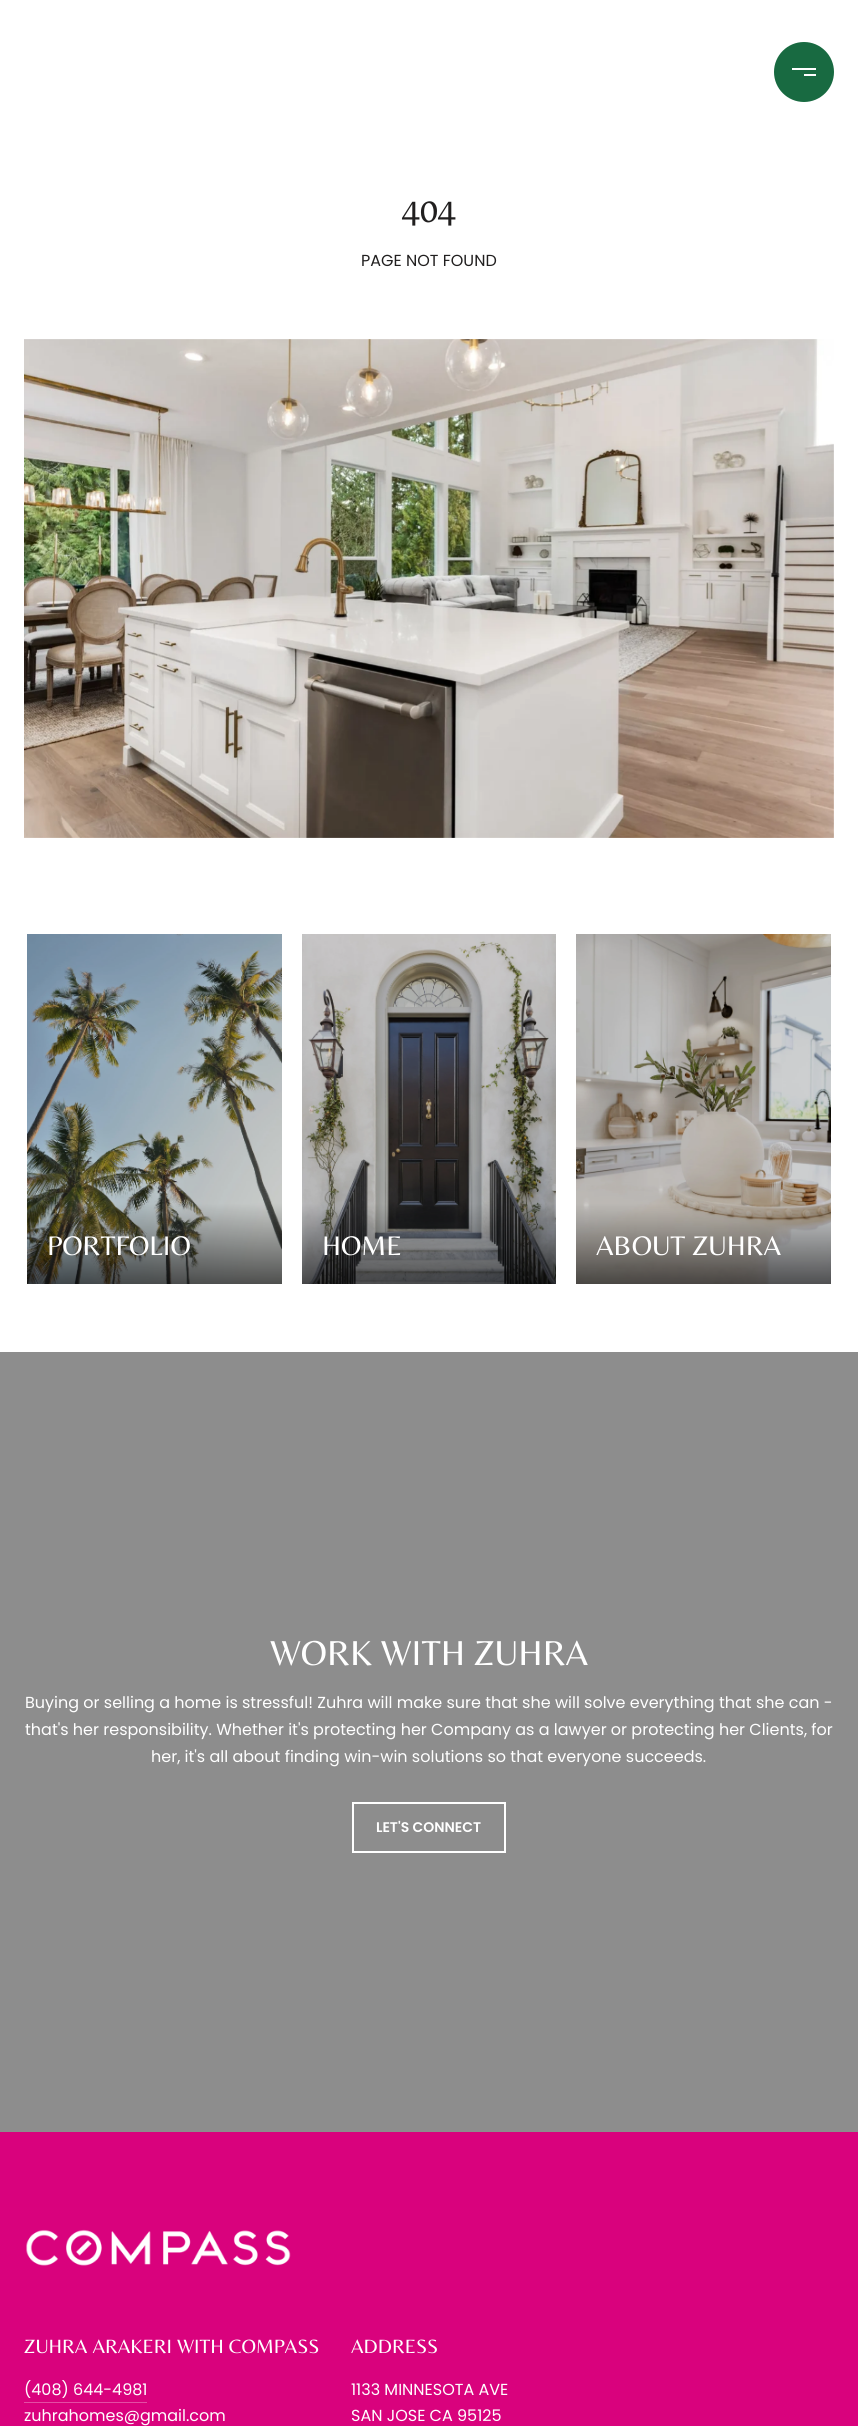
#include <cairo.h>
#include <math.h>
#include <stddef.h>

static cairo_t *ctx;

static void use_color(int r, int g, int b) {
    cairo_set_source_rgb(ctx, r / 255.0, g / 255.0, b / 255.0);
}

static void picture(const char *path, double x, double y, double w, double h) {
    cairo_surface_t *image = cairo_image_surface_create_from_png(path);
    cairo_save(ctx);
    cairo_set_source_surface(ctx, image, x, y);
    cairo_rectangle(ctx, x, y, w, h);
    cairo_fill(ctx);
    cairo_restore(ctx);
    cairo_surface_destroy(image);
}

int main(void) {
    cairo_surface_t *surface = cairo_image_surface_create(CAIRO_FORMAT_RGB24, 858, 2426);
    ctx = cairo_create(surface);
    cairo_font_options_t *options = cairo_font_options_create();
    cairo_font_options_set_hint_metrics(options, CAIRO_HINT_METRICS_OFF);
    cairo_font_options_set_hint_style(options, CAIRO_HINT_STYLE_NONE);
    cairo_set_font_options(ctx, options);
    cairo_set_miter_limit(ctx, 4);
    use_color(255, 255, 255);
    cairo_paint(ctx);
    use_color(24, 106, 65);
    cairo_arc(ctx, 804, 72, 30, 0, 2 * M_PI);
    cairo_fill(ctx);
    use_color(255, 255, 255);
    cairo_rectangle(ctx, 792, 68, 24, 2);
    cairo_fill(ctx);
    cairo_rectangle(ctx, 804, 74, 12, 2);
    cairo_fill(ctx);
    cairo_select_font_face(ctx, "Belleza", CAIRO_FONT_SLANT_NORMAL, CAIRO_FONT_WEIGHT_NORMAL);
    cairo_set_font_size(ctx, 36);
    use_color(33, 31, 31);
    cairo_move_to(ctx, 402, 222);
    cairo_show_text(ctx, "404");
    cairo_select_font_face(ctx, "Poppins", CAIRO_FONT_SLANT_NORMAL, CAIRO_FONT_WEIGHT_NORMAL);
    cairo_set_font_size(ctx, 16);
    cairo_move_to(ctx, 361, 266);
    cairo_show_text(ctx, "PAGE NOT FOUND");
    picture("img1.png", 24, 339, 810, 499);
    picture("img2.png", 27, 934, 255, 350);
    cairo_select_font_face(ctx, "Belleza", CAIRO_FONT_SLANT_NORMAL, CAIRO_FONT_WEIGHT_NORMAL);
    cairo_set_font_size(ctx, 28);
    use_color(255, 255, 255);
    cairo_move_to(ctx, 47, 1255);
    cairo_show_text(ctx, "PORTFOLIO");
    picture("img3.png", 302, 934, 254, 350);
    cairo_move_to(ctx, 322, 1255);
    cairo_show_text(ctx, "HOME");
    picture("img4.png", 576, 934, 255, 350);
    cairo_move_to(ctx, 596, 1255);
    cairo_show_text(ctx, "ABOUT ZUHRA");
    use_color(141, 141, 141);
    cairo_rectangle(ctx, 0, 1352, 858, 780);
    cairo_fill(ctx);
    cairo_set_font_size(ctx, 36);
    use_color(255, 255, 255);
    cairo_move_to(ctx, 270, 1665);
    cairo_show_text(ctx, "WORK WITH ZUHRA");
    cairo_select_font_face(ctx, "Poppins", CAIRO_FONT_SLANT_NORMAL, CAIRO_FONT_WEIGHT_NORMAL);
    cairo_set_font_size(ctx, 16);
    cairo_move_to(ctx, 25, 1708);
    cairo_show_text(ctx, "Buying or selling a home is stressful! Zuhra will make sure that she will solve everything that she can -");
    cairo_move_to(ctx, 25, 1735);
    cairo_show_text(ctx, "that's her responsibility. Whether it's protecting her Company as a lawyer or protecting her Clients, for");
    cairo_move_to(ctx, 151, 1762);
    cairo_show_text(ctx, "her, it's all about finding win-win solutions so that everyone succeeds.");
    cairo_rectangle(ctx, 353, 1803, 152, 49);
    cairo_stroke(ctx);
    cairo_select_font_face(ctx, "Poppins SemiBold", CAIRO_FONT_SLANT_NORMAL, CAIRO_FONT_WEIGHT_NORMAL);
    cairo_set_font_size(ctx, 14);
    cairo_move_to(ctx, 376, 1832);
    cairo_show_text(ctx, "LET'S CONNECT");
    use_color(217, 2, 125);
    cairo_rectangle(ctx, 0, 2132, 858, 294);
    cairo_fill(ctx);
    picture("img5.png", 26, 2229, 265, 37);
    cairo_select_font_face(ctx, "Belleza", CAIRO_FONT_SLANT_NORMAL, CAIRO_FONT_WEIGHT_NORMAL);
    cairo_set_font_size(ctx, 20);
    use_color(255, 255, 255);
    cairo_move_to(ctx, 24, 2353);
    cairo_show_text(ctx, "ZUHRA ARAKERI WITH COMPASS");
    cairo_select_font_face(ctx, "Poppins", CAIRO_FONT_SLANT_NORMAL, CAIRO_FONT_WEIGHT_NORMAL);
    cairo_set_font_size(ctx, 16);
    cairo_move_to(ctx, 24, 2395);
    cairo_show_text(ctx, "(408) 644-4981");
    use_color(228, 78, 164);
    cairo_rectangle(ctx, 24, 2402, 123, 1);
    cairo_fill(ctx);
    use_color(255, 255, 255);
    cairo_move_to(ctx, 24, 2421);
    cairo_show_text(ctx, "zuhrahomes@gmail.com");
    cairo_select_font_face(ctx, "Belleza", CAIRO_FONT_SLANT_NORMAL, CAIRO_FONT_WEIGHT_NORMAL);
    cairo_set_font_size(ctx, 20);
    cairo_move_to(ctx, 351, 2353);
    cairo_show_text(ctx, "ADDRESS");
    cairo_select_font_face(ctx, "Poppins", CAIRO_FONT_SLANT_NORMAL, CAIRO_FONT_WEIGHT_NORMAL);
    cairo_set_font_size(ctx, 16);
    cairo_move_to(ctx, 351, 2395);
    cairo_show_text(ctx, "1133 MINNESOTA AVE");
    cairo_move_to(ctx, 351, 2421);
    cairo_show_text(ctx, "SAN JOSE CA 95125");
    cairo_surface_write_to_png(surface, "result.png");
    cairo_font_options_destroy(options);
    cairo_destroy(ctx);
    cairo_surface_destroy(surface);
    return 0;
}
